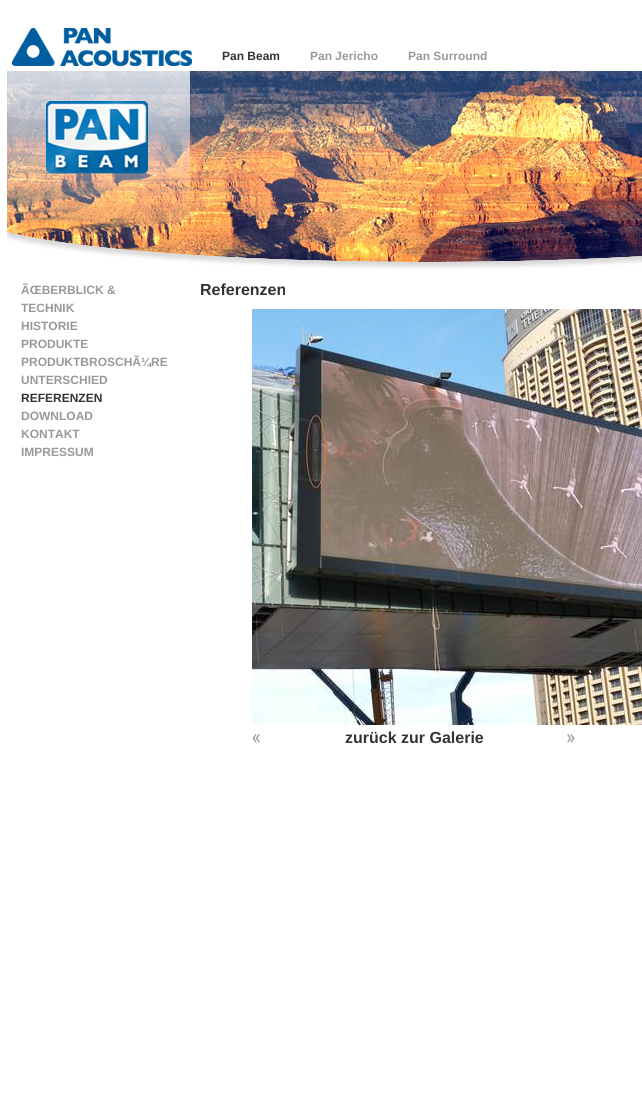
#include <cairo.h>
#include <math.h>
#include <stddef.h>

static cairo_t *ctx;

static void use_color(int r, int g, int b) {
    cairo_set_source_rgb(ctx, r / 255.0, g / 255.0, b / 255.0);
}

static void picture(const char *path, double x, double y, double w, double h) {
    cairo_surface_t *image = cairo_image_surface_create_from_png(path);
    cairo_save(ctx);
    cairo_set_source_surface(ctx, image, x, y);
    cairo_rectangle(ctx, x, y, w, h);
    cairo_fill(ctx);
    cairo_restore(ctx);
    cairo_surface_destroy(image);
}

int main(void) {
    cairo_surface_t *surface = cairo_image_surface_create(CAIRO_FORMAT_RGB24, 642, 1120);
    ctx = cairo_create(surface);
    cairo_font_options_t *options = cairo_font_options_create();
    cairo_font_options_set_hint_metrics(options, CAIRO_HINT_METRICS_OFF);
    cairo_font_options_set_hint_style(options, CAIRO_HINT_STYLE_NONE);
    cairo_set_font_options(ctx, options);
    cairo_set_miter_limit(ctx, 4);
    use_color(255, 255, 255);
    cairo_paint(ctx);
    picture("img1.png", 12, 28, 180, 38);
    cairo_select_font_face(ctx, "Liberation Sans", CAIRO_FONT_SLANT_NORMAL, CAIRO_FONT_WEIGHT_BOLD);
    cairo_set_font_size(ctx, 12);
    use_color(51, 51, 51);
    cairo_move_to(ctx, 222, 60);
    cairo_show_text(ctx, "Pan Beam");
    use_color(153, 153, 153);
    cairo_move_to(ctx, 310, 60);
    cairo_show_text(ctx, "Pan Jericho");
    cairo_move_to(ctx, 408, 60);
    cairo_show_text(ctx, "Pan Surround");
    picture("img2.png", 7, 71, 635, 199);
    cairo_move_to(ctx, 21, 294);
    cairo_show_text(ctx, "ÃŒBERBLICK &");
    cairo_move_to(ctx, 21, 312);
    cairo_show_text(ctx, "TECHNIK");
    cairo_move_to(ctx, 21, 330);
    cairo_show_text(ctx, "HISTORIE");
    cairo_move_to(ctx, 21, 348);
    cairo_show_text(ctx, "PRODUKTE");
    cairo_move_to(ctx, 21, 366);
    cairo_show_text(ctx, "PRODUKTBROSCHÃ¼RE");
    cairo_move_to(ctx, 21, 384);
    cairo_show_text(ctx, "UNTERSCHIED");
    use_color(51, 51, 51);
    cairo_move_to(ctx, 21, 402);
    cairo_show_text(ctx, "REFERENZEN");
    use_color(153, 153, 153);
    cairo_move_to(ctx, 21, 420);
    cairo_show_text(ctx, "DOWNLOAD");
    cairo_move_to(ctx, 21, 438);
    cairo_show_text(ctx, "KONTAKT");
    cairo_move_to(ctx, 21, 456);
    cairo_show_text(ctx, "IMPRESSUM");
    cairo_set_font_size(ctx, 16);
    use_color(51, 51, 51);
    cairo_move_to(ctx, 200, 295);
    cairo_show_text(ctx, "Referenzen");
    picture("img3.png", 252, 309, 390, 416);
    picture("img4.png", 252, 734, 8, 9);
    cairo_move_to(ctx, 345, 743);
    cairo_show_text(ctx, "zurück zur Galerie");
    picture("img5.png", 567, 734, 8, 9);
    cairo_surface_write_to_png(surface, "result.png");
    cairo_font_options_destroy(options);
    cairo_destroy(ctx);
    cairo_surface_destroy(surface);
    return 0;
}
